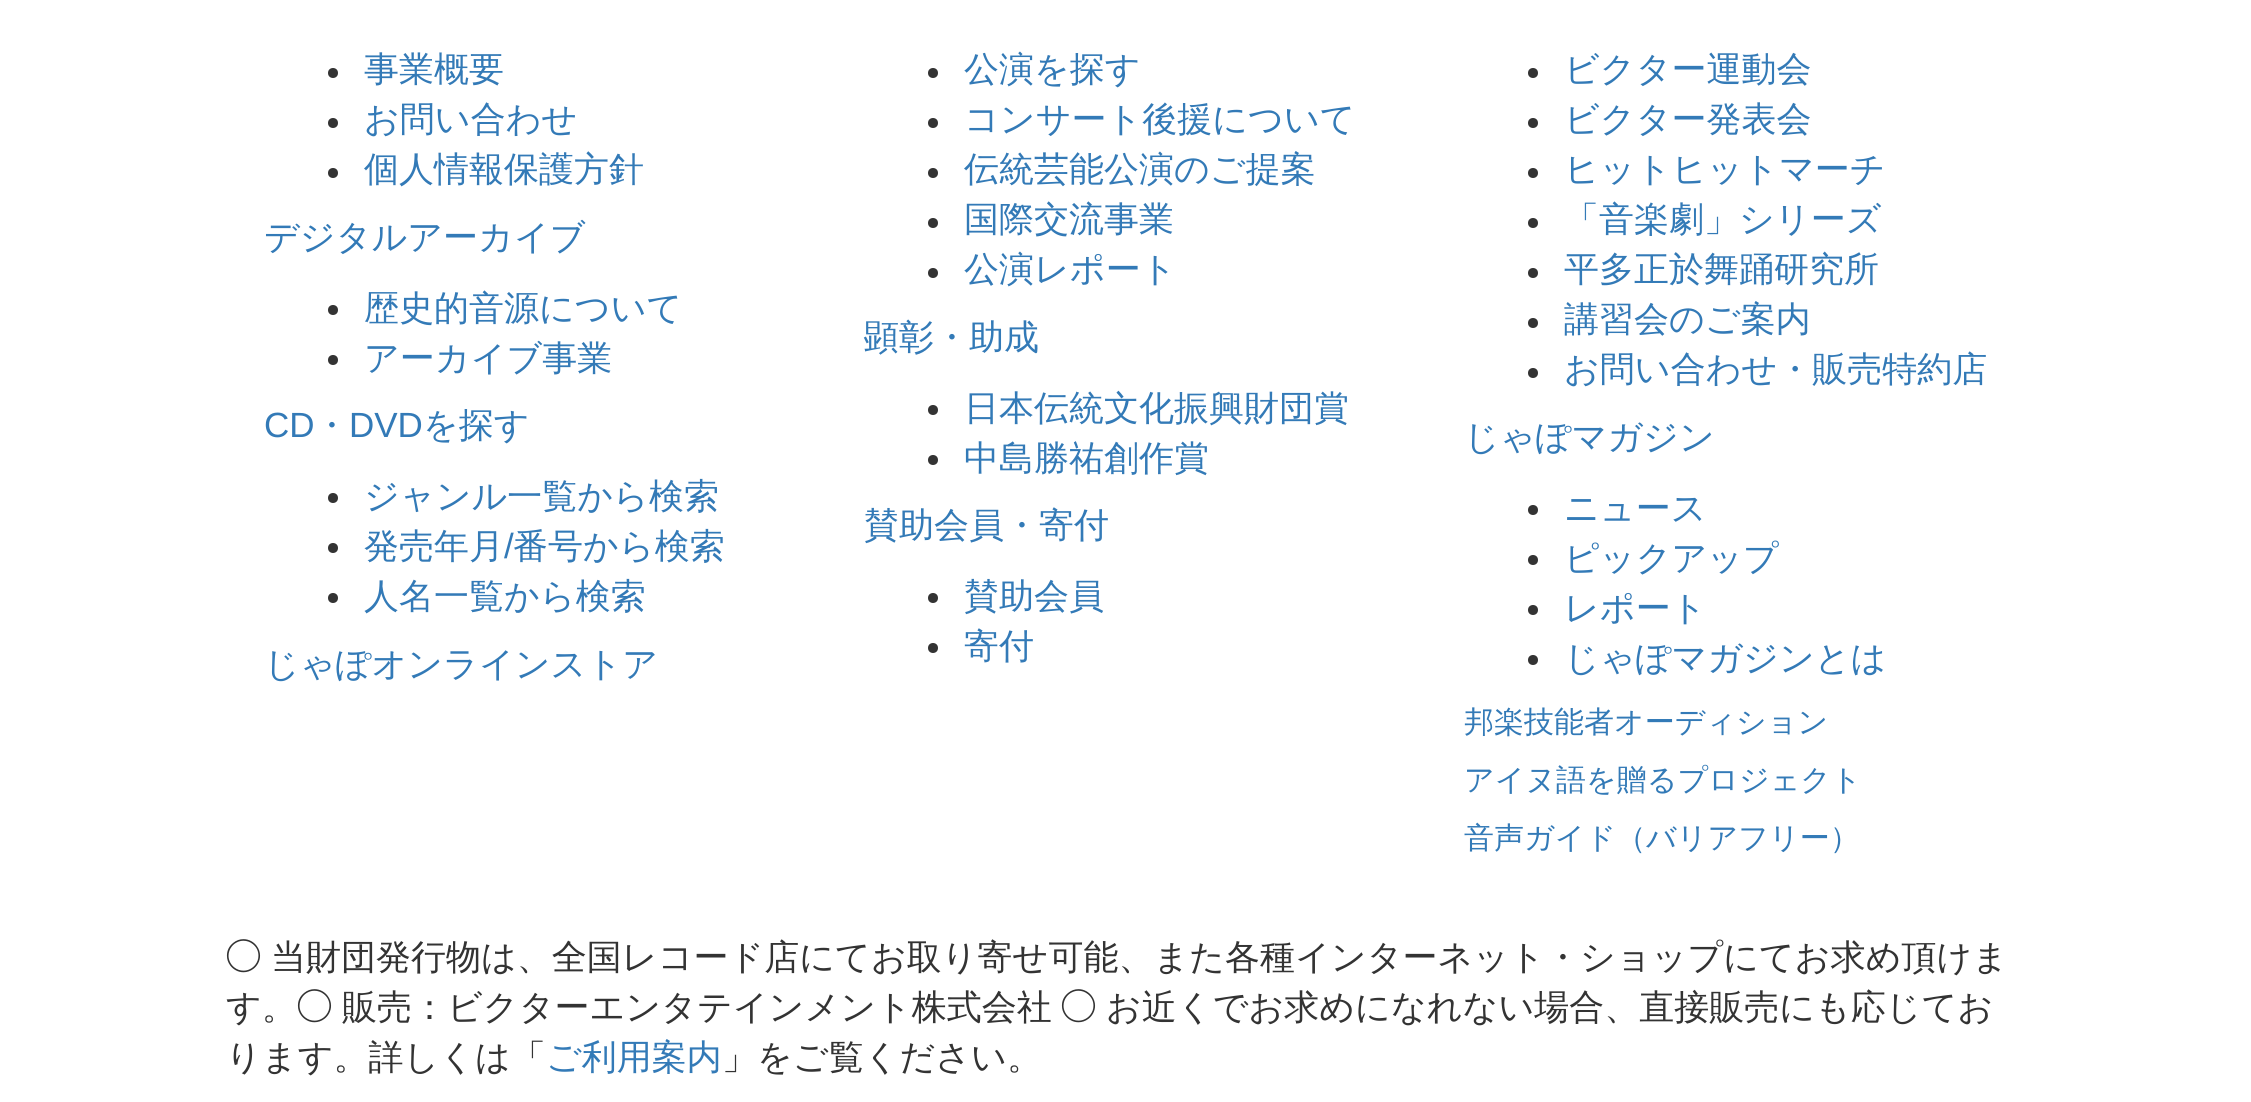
#include <cairo.h>
#include <math.h>
#include <stddef.h>

static cairo_t *ctx;

static void use_color(int r, int g, int b) {
    cairo_set_source_rgb(ctx, r / 255.0, g / 255.0, b / 255.0);
}

int main(void) {
    cairo_surface_t *surface = cairo_image_surface_create(CAIRO_FORMAT_RGB24, 2251, 1102);
    ctx = cairo_create(surface);
    cairo_font_options_t *options = cairo_font_options_create();
    cairo_font_options_set_hint_metrics(options, CAIRO_HINT_METRICS_OFF);
    cairo_font_options_set_hint_style(options, CAIRO_HINT_STYLE_NONE);
    cairo_set_font_options(ctx, options);
    cairo_set_miter_limit(ctx, 4);
    use_color(255, 255, 255);
    cairo_paint(ctx);
    use_color(51, 51, 51);
    cairo_arc(ctx, 333, 73, 5, 0, 2 * M_PI);
    cairo_fill(ctx);
    cairo_select_font_face(ctx, "WenQuanYi Zen Hei Medium", CAIRO_FONT_SLANT_NORMAL, CAIRO_FONT_WEIGHT_NORMAL);
    cairo_set_font_size(ctx, 35);
    use_color(51, 122, 183);
    cairo_move_to(ctx, 364, 81);
    cairo_show_text(ctx, "事業概要");
    use_color(51, 51, 51);
    cairo_new_path(ctx);
    cairo_arc(ctx, 333, 123, 5, 0, 2 * M_PI);
    cairo_fill(ctx);
    use_color(51, 122, 183);
    cairo_move_to(ctx, 364, 131);
    cairo_show_text(ctx, "お問い合わせ");
    use_color(51, 51, 51);
    cairo_new_path(ctx);
    cairo_arc(ctx, 333, 173, 5, 0, 2 * M_PI);
    cairo_fill(ctx);
    use_color(51, 122, 183);
    cairo_move_to(ctx, 364, 181);
    cairo_show_text(ctx, "個人情報保護方針");
    cairo_move_to(ctx, 264, 249);
    cairo_show_text(ctx, "デジタルアーカイブ");
    use_color(51, 51, 51);
    cairo_new_path(ctx);
    cairo_arc(ctx, 333, 310, 5, 0, 2 * M_PI);
    cairo_fill(ctx);
    use_color(51, 122, 183);
    cairo_move_to(ctx, 364, 320);
    cairo_show_text(ctx, "歴史的音源について");
    use_color(51, 51, 51);
    cairo_new_path(ctx);
    cairo_arc(ctx, 333, 360, 5, 0, 2 * M_PI);
    cairo_fill(ctx);
    use_color(51, 122, 183);
    cairo_move_to(ctx, 364, 370);
    cairo_show_text(ctx, "アーカイブ事業");
    cairo_select_font_face(ctx, "Liberation Sans", CAIRO_FONT_SLANT_NORMAL, CAIRO_FONT_WEIGHT_NORMAL);
    cairo_move_to(ctx, 264, 437);
    cairo_show_text(ctx, "CD");
    cairo_select_font_face(ctx, "WenQuanYi Zen Hei Medium", CAIRO_FONT_SLANT_NORMAL, CAIRO_FONT_WEIGHT_NORMAL);
    cairo_move_to(ctx, 314, 437);
    cairo_show_text(ctx, "・");
    cairo_select_font_face(ctx, "Liberation Sans", CAIRO_FONT_SLANT_NORMAL, CAIRO_FONT_WEIGHT_NORMAL);
    cairo_move_to(ctx, 349, 437);
    cairo_show_text(ctx, "DVD");
    cairo_select_font_face(ctx, "WenQuanYi Zen Hei Medium", CAIRO_FONT_SLANT_NORMAL, CAIRO_FONT_WEIGHT_NORMAL);
    cairo_move_to(ctx, 423, 437);
    cairo_show_text(ctx, "を探す");
    use_color(51, 51, 51);
    cairo_new_path(ctx);
    cairo_arc(ctx, 333, 498, 5, 0, 2 * M_PI);
    cairo_fill(ctx);
    use_color(51, 122, 183);
    cairo_move_to(ctx, 364, 508);
    cairo_show_text(ctx, "ジャンル一覧から検索");
    use_color(51, 51, 51);
    cairo_new_path(ctx);
    cairo_arc(ctx, 333, 548, 5, 0, 2 * M_PI);
    cairo_fill(ctx);
    use_color(51, 122, 183);
    cairo_move_to(ctx, 364, 558);
    cairo_show_text(ctx, "発売年月");
    cairo_select_font_face(ctx, "Liberation Sans", CAIRO_FONT_SLANT_NORMAL, CAIRO_FONT_WEIGHT_NORMAL);
    cairo_move_to(ctx, 504, 558);
    cairo_show_text(ctx, "/");
    cairo_select_font_face(ctx, "WenQuanYi Zen Hei Medium", CAIRO_FONT_SLANT_NORMAL, CAIRO_FONT_WEIGHT_NORMAL);
    cairo_move_to(ctx, 513, 558);
    cairo_show_text(ctx, "番号から検索");
    use_color(51, 51, 51);
    cairo_new_path(ctx);
    cairo_arc(ctx, 333, 598, 5, 0, 2 * M_PI);
    cairo_fill(ctx);
    use_color(51, 122, 183);
    cairo_move_to(ctx, 364, 608);
    cairo_show_text(ctx, "人名一覧から検索");
    cairo_move_to(ctx, 264, 676);
    cairo_show_text(ctx, "じゃぽオンラインストア");
    use_color(51, 51, 51);
    cairo_new_path(ctx);
    cairo_arc(ctx, 933, 73, 5, 0, 2 * M_PI);
    cairo_fill(ctx);
    use_color(51, 122, 183);
    cairo_move_to(ctx, 964, 81);
    cairo_show_text(ctx, "公演を探す");
    use_color(51, 51, 51);
    cairo_new_path(ctx);
    cairo_arc(ctx, 933, 123, 5, 0, 2 * M_PI);
    cairo_fill(ctx);
    use_color(51, 122, 183);
    cairo_move_to(ctx, 964, 131);
    cairo_show_text(ctx, "コンサート後援について");
    use_color(51, 51, 51);
    cairo_new_path(ctx);
    cairo_arc(ctx, 933, 173, 5, 0, 2 * M_PI);
    cairo_fill(ctx);
    use_color(51, 122, 183);
    cairo_move_to(ctx, 964, 181);
    cairo_show_text(ctx, "伝統芸能公演のご提案");
    use_color(51, 51, 51);
    cairo_new_path(ctx);
    cairo_arc(ctx, 933, 223, 5, 0, 2 * M_PI);
    cairo_fill(ctx);
    use_color(51, 122, 183);
    cairo_move_to(ctx, 964, 231);
    cairo_show_text(ctx, "国際交流事業");
    use_color(51, 51, 51);
    cairo_new_path(ctx);
    cairo_arc(ctx, 933, 273, 5, 0, 2 * M_PI);
    cairo_fill(ctx);
    use_color(51, 122, 183);
    cairo_move_to(ctx, 964, 281);
    cairo_show_text(ctx, "公演レポート");
    cairo_move_to(ctx, 864, 349);
    cairo_show_text(ctx, "顕彰・助成");
    use_color(51, 51, 51);
    cairo_new_path(ctx);
    cairo_arc(ctx, 933, 410, 5, 0, 2 * M_PI);
    cairo_fill(ctx);
    use_color(51, 122, 183);
    cairo_move_to(ctx, 964, 420);
    cairo_show_text(ctx, "日本伝統文化振興財団賞");
    use_color(51, 51, 51);
    cairo_new_path(ctx);
    cairo_arc(ctx, 933, 460, 5, 0, 2 * M_PI);
    cairo_fill(ctx);
    use_color(51, 122, 183);
    cairo_move_to(ctx, 964, 470);
    cairo_show_text(ctx, "中島勝祐創作賞");
    cairo_move_to(ctx, 864, 537);
    cairo_show_text(ctx, "賛助会員・寄付");
    use_color(51, 51, 51);
    cairo_new_path(ctx);
    cairo_arc(ctx, 933, 598, 5, 0, 2 * M_PI);
    cairo_fill(ctx);
    use_color(51, 122, 183);
    cairo_move_to(ctx, 964, 608);
    cairo_show_text(ctx, "賛助会員");
    use_color(51, 51, 51);
    cairo_new_path(ctx);
    cairo_arc(ctx, 933, 648, 5, 0, 2 * M_PI);
    cairo_fill(ctx);
    use_color(51, 122, 183);
    cairo_move_to(ctx, 964, 658);
    cairo_show_text(ctx, "寄付");
    use_color(51, 51, 51);
    cairo_new_path(ctx);
    cairo_arc(ctx, 1533, 73, 5, 0, 2 * M_PI);
    cairo_fill(ctx);
    use_color(51, 122, 183);
    cairo_move_to(ctx, 1564, 81);
    cairo_show_text(ctx, "ビクター運動会");
    use_color(51, 51, 51);
    cairo_new_path(ctx);
    cairo_arc(ctx, 1533, 123, 5, 0, 2 * M_PI);
    cairo_fill(ctx);
    use_color(51, 122, 183);
    cairo_move_to(ctx, 1564, 131);
    cairo_show_text(ctx, "ビクター発表会");
    use_color(51, 51, 51);
    cairo_new_path(ctx);
    cairo_arc(ctx, 1533, 173, 5, 0, 2 * M_PI);
    cairo_fill(ctx);
    use_color(51, 122, 183);
    cairo_move_to(ctx, 1564, 181);
    cairo_show_text(ctx, "ヒットヒットマーチ");
    use_color(51, 51, 51);
    cairo_new_path(ctx);
    cairo_arc(ctx, 1533, 223, 5, 0, 2 * M_PI);
    cairo_fill(ctx);
    use_color(51, 122, 183);
    cairo_move_to(ctx, 1564, 231);
    cairo_show_text(ctx, "「音楽劇」シリーズ");
    use_color(51, 51, 51);
    cairo_new_path(ctx);
    cairo_arc(ctx, 1533, 273, 5, 0, 2 * M_PI);
    cairo_fill(ctx);
    use_color(51, 122, 183);
    cairo_move_to(ctx, 1564, 281);
    cairo_show_text(ctx, "平多正於舞踊研究所");
    use_color(51, 51, 51);
    cairo_new_path(ctx);
    cairo_arc(ctx, 1533, 323, 5, 0, 2 * M_PI);
    cairo_fill(ctx);
    use_color(51, 122, 183);
    cairo_move_to(ctx, 1564, 331);
    cairo_show_text(ctx, "講習会のご案内");
    use_color(51, 51, 51);
    cairo_new_path(ctx);
    cairo_arc(ctx, 1533, 373, 5, 0, 2 * M_PI);
    cairo_fill(ctx);
    use_color(51, 122, 183);
    cairo_move_to(ctx, 1564, 381);
    cairo_show_text(ctx, "お問い合わせ・販売特約店");
    cairo_move_to(ctx, 1464, 449);
    cairo_show_text(ctx, "じゃぽマガジン");
    use_color(51, 51, 51);
    cairo_new_path(ctx);
    cairo_arc(ctx, 1533, 510, 5, 0, 2 * M_PI);
    cairo_fill(ctx);
    use_color(51, 122, 183);
    cairo_move_to(ctx, 1564, 520);
    cairo_show_text(ctx, "ニュース");
    use_color(51, 51, 51);
    cairo_new_path(ctx);
    cairo_arc(ctx, 1533, 560, 5, 0, 2 * M_PI);
    cairo_fill(ctx);
    use_color(51, 122, 183);
    cairo_move_to(ctx, 1564, 570);
    cairo_show_text(ctx, "ピックアップ");
    use_color(51, 51, 51);
    cairo_new_path(ctx);
    cairo_arc(ctx, 1533, 610, 5, 0, 2 * M_PI);
    cairo_fill(ctx);
    use_color(51, 122, 183);
    cairo_move_to(ctx, 1564, 620);
    cairo_show_text(ctx, "レポート");
    use_color(51, 51, 51);
    cairo_new_path(ctx);
    cairo_arc(ctx, 1533, 660, 5, 0, 2 * M_PI);
    cairo_fill(ctx);
    use_color(51, 122, 183);
    cairo_move_to(ctx, 1564, 670);
    cairo_show_text(ctx, "じゃぽマガジンとは");
    cairo_set_font_size(ctx, 30);
    cairo_move_to(ctx, 1464, 732);
    cairo_show_text(ctx, "邦楽技能者オーディション");
    cairo_move_to(ctx, 1464, 790);
    cairo_show_text(ctx, "アイヌ語を贈るプロジェクト");
    cairo_move_to(ctx, 1464, 848);
    cairo_show_text(ctx, "音声ガイド（バリアフリー）");
    cairo_select_font_face(ctx, "IPAPGothic", CAIRO_FONT_SLANT_NORMAL, CAIRO_FONT_WEIGHT_NORMAL);
    cairo_set_font_size(ctx, 35);
    use_color(51, 51, 51);
    cairo_move_to(ctx, 226, 969);
    cairo_show_text(ctx, "◯");
    cairo_select_font_face(ctx, "WenQuanYi Zen Hei Medium", CAIRO_FONT_SLANT_NORMAL, CAIRO_FONT_WEIGHT_NORMAL);
    cairo_move_to(ctx, 271, 969);
    cairo_show_text(ctx, "当財団発行物は、全国レコード店にてお取り寄せ可能、また各種インターネット・ショップにてお求め頂けま");
    cairo_move_to(ctx, 226, 1019);
    cairo_show_text(ctx, "す。");
    cairo_select_font_face(ctx, "IPAPGothic", CAIRO_FONT_SLANT_NORMAL, CAIRO_FONT_WEIGHT_NORMAL);
    cairo_move_to(ctx, 297, 1019);
    cairo_show_text(ctx, "◯");
    cairo_select_font_face(ctx, "WenQuanYi Zen Hei Medium", CAIRO_FONT_SLANT_NORMAL, CAIRO_FONT_WEIGHT_NORMAL);
    cairo_move_to(ctx, 342, 1019);
    cairo_show_text(ctx, "販売：ビクターエンタテインメント株式会社");
    cairo_select_font_face(ctx, "IPAPGothic", CAIRO_FONT_SLANT_NORMAL, CAIRO_FONT_WEIGHT_NORMAL);
    cairo_move_to(ctx, 1061, 1019);
    cairo_show_text(ctx, "◯");
    cairo_select_font_face(ctx, "WenQuanYi Zen Hei Medium", CAIRO_FONT_SLANT_NORMAL, CAIRO_FONT_WEIGHT_NORMAL);
    cairo_move_to(ctx, 1106, 1019);
    cairo_show_text(ctx, "お近くでお求めになれない場合、直接販売にも応じてお");
    cairo_move_to(ctx, 226, 1069);
    cairo_show_text(ctx, "ります。詳しくは「");
    use_color(51, 122, 183);
    cairo_move_to(ctx, 546, 1069);
    cairo_show_text(ctx, "ご利用案内");
    use_color(51, 51, 51);
    cairo_move_to(ctx, 722, 1069);
    cairo_show_text(ctx, "」をご覧ください。");
    cairo_surface_write_to_png(surface, "result.png");
    cairo_font_options_destroy(options);
    cairo_destroy(ctx);
    cairo_surface_destroy(surface);
    return 0;
}
